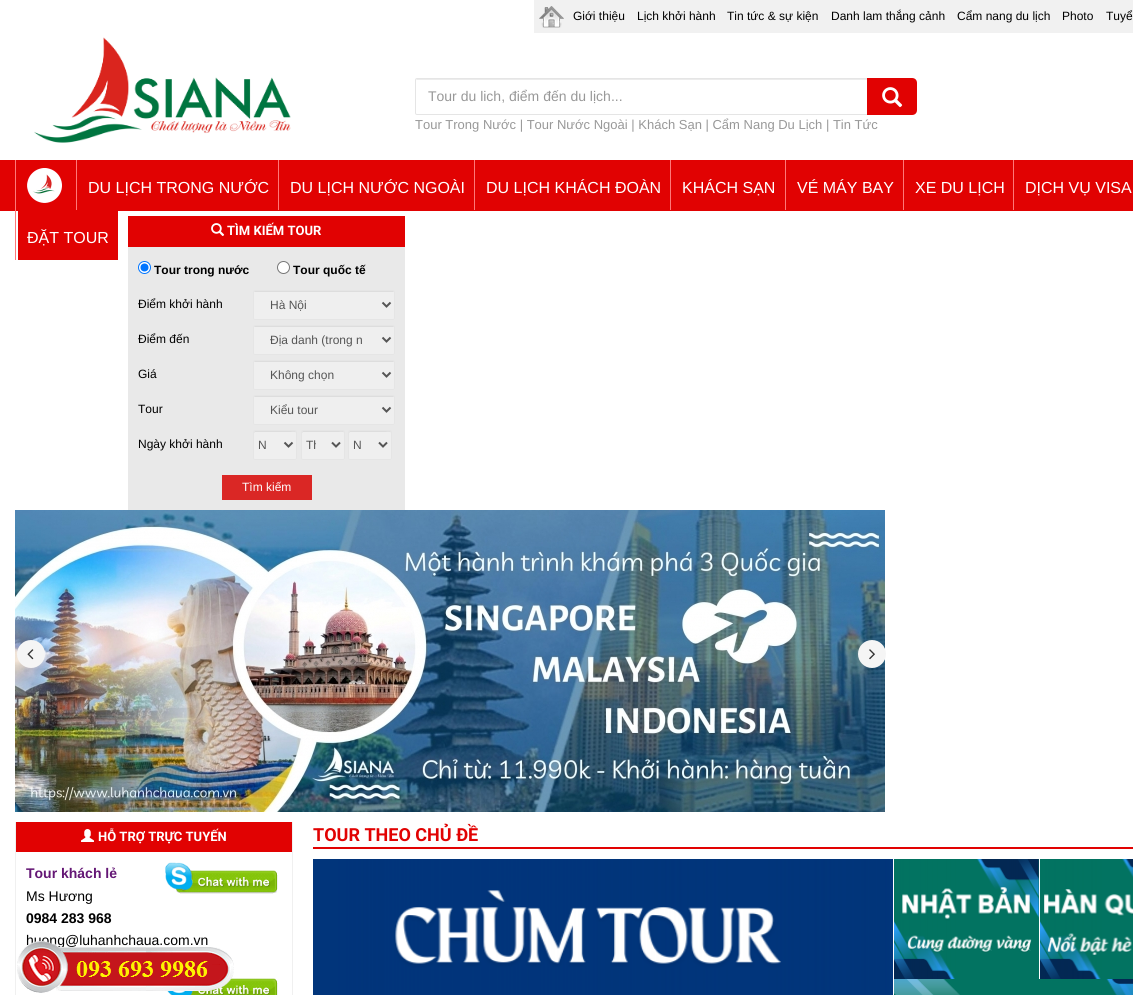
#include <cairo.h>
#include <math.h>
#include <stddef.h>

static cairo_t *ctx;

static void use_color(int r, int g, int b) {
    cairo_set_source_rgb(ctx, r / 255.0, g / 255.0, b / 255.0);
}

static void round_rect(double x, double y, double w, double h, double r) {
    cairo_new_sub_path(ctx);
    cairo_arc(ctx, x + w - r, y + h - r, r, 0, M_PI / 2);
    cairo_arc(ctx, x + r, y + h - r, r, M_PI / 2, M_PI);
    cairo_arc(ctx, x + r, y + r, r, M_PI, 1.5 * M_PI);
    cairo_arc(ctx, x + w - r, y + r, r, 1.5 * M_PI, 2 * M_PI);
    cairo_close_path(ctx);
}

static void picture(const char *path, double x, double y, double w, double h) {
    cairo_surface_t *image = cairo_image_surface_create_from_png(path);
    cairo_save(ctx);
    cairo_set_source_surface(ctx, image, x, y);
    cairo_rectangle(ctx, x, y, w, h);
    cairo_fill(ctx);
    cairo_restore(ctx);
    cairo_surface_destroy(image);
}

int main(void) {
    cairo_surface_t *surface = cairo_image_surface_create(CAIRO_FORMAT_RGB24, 1133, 995);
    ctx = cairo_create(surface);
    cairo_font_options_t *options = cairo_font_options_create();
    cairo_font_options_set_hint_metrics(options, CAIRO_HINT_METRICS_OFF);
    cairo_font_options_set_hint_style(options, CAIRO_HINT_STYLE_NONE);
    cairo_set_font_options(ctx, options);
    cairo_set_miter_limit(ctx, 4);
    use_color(255, 255, 255);
    cairo_paint(ctx);
    use_color(241, 241, 241);
    cairo_rectangle(ctx, 534, 0, 599, 33);
    cairo_fill(ctx);
    picture("img1.png", 539, 6, 25, 22);
    cairo_select_font_face(ctx, "Liberation Sans", CAIRO_FONT_SLANT_NORMAL, CAIRO_FONT_WEIGHT_NORMAL);
    cairo_set_font_size(ctx, 12);
    use_color(0, 0, 0);
    cairo_move_to(ctx, 573, 20);
    cairo_show_text(ctx, "Giới thiệu");
    cairo_move_to(ctx, 637, 20);
    cairo_show_text(ctx, "Lịch khởi hành");
    cairo_move_to(ctx, 727, 20);
    cairo_show_text(ctx, "Tin tức & sự kiện");
    cairo_move_to(ctx, 831, 20);
    cairo_show_text(ctx, "Danh lam thắng cảnh");
    cairo_move_to(ctx, 957, 20);
    cairo_show_text(ctx, "Cẩm nang du lịch");
    cairo_move_to(ctx, 1062, 20);
    cairo_show_text(ctx, "Photo");
    cairo_move_to(ctx, 1106, 20);
    cairo_show_text(ctx, "Tuyể");
    picture("img2.png", 34, 37, 257, 106);
    use_color(236, 236, 236);
    cairo_new_path(ctx);
    cairo_move_to(ctx, 417, 80);
    cairo_line_to(ctx, 869, 80);
    cairo_curve_to(ctx, 870, 80, 870, 80, 870, 81);
    cairo_curve_to(ctx, 870, 80, 870, 79, 869, 79);
    cairo_line_to(ctx, 417, 79);
    cairo_line_to(ctx, 416, 80);
    cairo_line_to(ctx, 416, 81);
    cairo_curve_to(ctx, 416, 80, 416, 80, 417, 80);
    cairo_close_path(ctx);
    cairo_fill(ctx);
    round_rect(415.5, 78.5, 455, 36, 1.5);
    use_color(229, 229, 229);
    cairo_set_line_width(ctx, 1);
    cairo_stroke(ctx);
    cairo_set_font_size(ctx, 14);
    use_color(152, 152, 152);
    cairo_move_to(ctx, 428, 101);
    cairo_show_text(ctx, "Tour du lich, điểm đến du lịch...");
    use_color(225, 2, 2);
    cairo_new_path(ctx);
    cairo_move_to(ctx, 867, 78);
    cairo_line_to(ctx, 912, 78);
    cairo_curve_to(ctx, 915, 78, 917, 80, 917, 83);
    cairo_line_to(ctx, 917, 110);
    cairo_curve_to(ctx, 917, 113, 915, 115, 912, 115);
    cairo_line_to(ctx, 867, 115);
    cairo_close_path(ctx);
    cairo_fill(ctx);
    picture("img3.png", 882, 87, 21, 21);
    cairo_set_font_size(ctx, 13);
    use_color(152, 152, 152);
    cairo_move_to(ctx, 415, 129);
    cairo_show_text(ctx, "Tour Trong Nước | Tour Nước Ngoài | Khách Sạn | Cẩm Nang Du Lịch | Tin Tức");
    use_color(225, 2, 2);
    cairo_rectangle(ctx, 0, 160, 1133, 51);
    cairo_fill(ctx);
    use_color(254, 120, 120);
    cairo_rectangle(ctx, 15, 160, 1, 100);
    cairo_fill(ctx);
    picture("img4.png", 27, 168, 35, 35);
    cairo_rectangle(ctx, 76, 160, 1, 50);
    cairo_fill(ctx);
    cairo_set_font_size(ctx, 16);
    use_color(255, 255, 255);
    cairo_move_to(ctx, 88, 193);
    cairo_show_text(ctx, "DU LỊCH TRONG NƯỚC");
    use_color(254, 120, 120);
    cairo_rectangle(ctx, 278, 160, 1, 50);
    cairo_fill(ctx);
    use_color(255, 255, 255);
    cairo_move_to(ctx, 290, 193);
    cairo_show_text(ctx, "DU LỊCH NƯỚC NGOÀI");
    use_color(254, 120, 120);
    cairo_rectangle(ctx, 474, 160, 1, 50);
    cairo_fill(ctx);
    use_color(255, 255, 255);
    cairo_move_to(ctx, 486, 193);
    cairo_show_text(ctx, "DU LỊCH KHÁCH ĐOÀN");
    use_color(254, 120, 120);
    cairo_rectangle(ctx, 670, 160, 1, 50);
    cairo_fill(ctx);
    use_color(255, 255, 255);
    cairo_move_to(ctx, 682, 193);
    cairo_show_text(ctx, "KHÁCH SẠN");
    use_color(254, 120, 120);
    cairo_rectangle(ctx, 785, 160, 1, 50);
    cairo_fill(ctx);
    use_color(255, 255, 255);
    cairo_move_to(ctx, 797, 193);
    cairo_show_text(ctx, "VÉ MÁY BAY");
    use_color(254, 120, 120);
    cairo_rectangle(ctx, 903, 160, 1, 50);
    cairo_fill(ctx);
    use_color(255, 255, 255);
    cairo_move_to(ctx, 915, 193);
    cairo_show_text(ctx, "XE DU LỊCH");
    use_color(254, 120, 120);
    cairo_rectangle(ctx, 1013, 160, 1, 50);
    cairo_fill(ctx);
    use_color(255, 255, 255);
    cairo_move_to(ctx, 1025, 193);
    cairo_show_text(ctx, "DỊCH VỤ VISA");
    use_color(225, 2, 2);
    cairo_rectangle(ctx, 18, 211, 100, 49);
    cairo_fill(ctx);
    use_color(255, 255, 255);
    cairo_move_to(ctx, 27, 243);
    cairo_show_text(ctx, "ĐẶT TOUR");
    use_color(233, 233, 233);
    cairo_rectangle(ctx, 128, 247, 277, 263);
    cairo_fill(ctx);
    use_color(225, 2, 2);
    cairo_rectangle(ctx, 128, 216, 277, 31);
    cairo_fill(ctx);
    picture("img5.png", 211, 223, 14, 13);
    cairo_select_font_face(ctx, "Roboto", CAIRO_FONT_SLANT_NORMAL, CAIRO_FONT_WEIGHT_BOLD);
    cairo_set_font_size(ctx, 13);
    use_color(255, 255, 255);
    cairo_move_to(ctx, 227, 235);
    cairo_show_text(ctx, "TÌM KIẾM TOUR");
    cairo_new_path(ctx);
    cairo_arc(ctx, 144.5, 267.5, 6, 0, 2 * M_PI);
    cairo_fill_preserve(ctx);
    use_color(0, 117, 255);
    cairo_stroke(ctx);
    cairo_arc(ctx, 144.5, 267.5, 4, 0, 2 * M_PI);
    cairo_fill(ctx);
    cairo_select_font_face(ctx, "Liberation Sans", CAIRO_FONT_SLANT_NORMAL, CAIRO_FONT_WEIGHT_BOLD);
    cairo_set_font_size(ctx, 12);
    use_color(0, 0, 0);
    cairo_move_to(ctx, 154, 274);
    cairo_show_text(ctx, "Tour trong nước");
    use_color(255, 255, 255);
    cairo_new_path(ctx);
    cairo_arc(ctx, 283.5, 267.5, 6, 0, 2 * M_PI);
    cairo_fill_preserve(ctx);
    use_color(118, 118, 118);
    cairo_stroke(ctx);
    use_color(0, 0, 0);
    cairo_move_to(ctx, 293, 274);
    cairo_show_text(ctx, "Tour quốc tế");
    cairo_select_font_face(ctx, "Liberation Sans", CAIRO_FONT_SLANT_NORMAL, CAIRO_FONT_WEIGHT_NORMAL);
    cairo_move_to(ctx, 138, 308);
    cairo_show_text(ctx, "Điểm khởi hành");
    use_color(239, 239, 239);
    round_rect(253, 290, 142, 30, 2);
    cairo_fill(ctx);
    use_color(221, 221, 221);
    cairo_new_path(ctx);
    cairo_move_to(ctx, 255, 292);
    cairo_line_to(ctx, 393, 292);
    cairo_curve_to(ctx, 394, 292, 394, 292, 394, 293);
    cairo_curve_to(ctx, 394, 292, 394, 291, 393, 291);
    cairo_line_to(ctx, 255, 291);
    cairo_curve_to(ctx, 254, 291, 254, 292, 254, 293);
    cairo_curve_to(ctx, 254, 292, 254, 292, 255, 292);
    cairo_close_path(ctx);
    cairo_fill(ctx);
    round_rect(253.5, 290.5, 141, 29, 1.5);
    use_color(229, 229, 229);
    cairo_stroke(ctx);
    cairo_new_path(ctx);
    cairo_move_to(ctx, 382.5, 302.5);
    cairo_line_to(ctx, 386.5, 306.5);
    cairo_line_to(ctx, 390.5, 302.5);
    use_color(85, 85, 85);
    cairo_set_line_width(ctx, 2);
    cairo_stroke(ctx);
    cairo_move_to(ctx, 270, 309);
    cairo_show_text(ctx, "Hà Nội");
    use_color(0, 0, 0);
    cairo_move_to(ctx, 138, 343);
    cairo_show_text(ctx, "Điểm đến");
    use_color(239, 239, 239);
    round_rect(253, 325, 142, 30, 2);
    cairo_fill(ctx);
    use_color(221, 221, 221);
    cairo_new_path(ctx);
    cairo_move_to(ctx, 255, 327);
    cairo_line_to(ctx, 393, 327);
    cairo_curve_to(ctx, 394, 327, 394, 327, 394, 328);
    cairo_curve_to(ctx, 394, 327, 394, 326, 393, 326);
    cairo_line_to(ctx, 255, 326);
    cairo_curve_to(ctx, 254, 326, 254, 327, 254, 328);
    cairo_curve_to(ctx, 254, 327, 254, 327, 255, 327);
    cairo_close_path(ctx);
    cairo_fill(ctx);
    round_rect(253.5, 325.5, 141, 29, 1.5);
    use_color(229, 229, 229);
    cairo_set_line_width(ctx, 1);
    cairo_stroke(ctx);
    cairo_new_path(ctx);
    cairo_move_to(ctx, 382.5, 337.5);
    cairo_line_to(ctx, 386.5, 341.5);
    cairo_line_to(ctx, 390.5, 337.5);
    use_color(85, 85, 85);
    cairo_set_line_width(ctx, 2);
    cairo_stroke(ctx);
    cairo_move_to(ctx, 270, 344);
    cairo_show_text(ctx, "Địa danh (trong n");
    use_color(0, 0, 0);
    cairo_move_to(ctx, 138, 378);
    cairo_show_text(ctx, "Giá");
    use_color(239, 239, 239);
    round_rect(253, 360, 142, 30, 2);
    cairo_fill(ctx);
    use_color(221, 221, 221);
    cairo_new_path(ctx);
    cairo_move_to(ctx, 255, 362);
    cairo_line_to(ctx, 393, 362);
    cairo_curve_to(ctx, 394, 362, 394, 362, 394, 363);
    cairo_curve_to(ctx, 394, 362, 394, 361, 393, 361);
    cairo_line_to(ctx, 255, 361);
    cairo_curve_to(ctx, 254, 361, 254, 362, 254, 363);
    cairo_curve_to(ctx, 254, 362, 254, 362, 255, 362);
    cairo_close_path(ctx);
    cairo_fill(ctx);
    round_rect(253.5, 360.5, 141, 29, 1.5);
    use_color(229, 229, 229);
    cairo_set_line_width(ctx, 1);
    cairo_stroke(ctx);
    cairo_new_path(ctx);
    cairo_move_to(ctx, 382.5, 372.5);
    cairo_line_to(ctx, 386.5, 376.5);
    cairo_line_to(ctx, 390.5, 372.5);
    use_color(85, 85, 85);
    cairo_set_line_width(ctx, 2);
    cairo_stroke(ctx);
    cairo_move_to(ctx, 270, 379);
    cairo_show_text(ctx, "Không chọn");
    use_color(0, 0, 0);
    cairo_move_to(ctx, 138, 413);
    cairo_show_text(ctx, "Tour");
    use_color(239, 239, 239);
    round_rect(253, 395, 142, 30, 2);
    cairo_fill(ctx);
    use_color(221, 221, 221);
    cairo_new_path(ctx);
    cairo_move_to(ctx, 255, 397);
    cairo_line_to(ctx, 393, 397);
    cairo_curve_to(ctx, 394, 397, 394, 397, 394, 398);
    cairo_curve_to(ctx, 394, 397, 394, 396, 393, 396);
    cairo_line_to(ctx, 255, 396);
    cairo_curve_to(ctx, 254, 396, 254, 397, 254, 398);
    cairo_curve_to(ctx, 254, 397, 254, 397, 255, 397);
    cairo_close_path(ctx);
    cairo_fill(ctx);
    round_rect(253.5, 395.5, 141, 29, 1.5);
    use_color(229, 229, 229);
    cairo_set_line_width(ctx, 1);
    cairo_stroke(ctx);
    cairo_new_path(ctx);
    cairo_move_to(ctx, 382.5, 407.5);
    cairo_line_to(ctx, 386.5, 411.5);
    cairo_line_to(ctx, 390.5, 407.5);
    use_color(85, 85, 85);
    cairo_set_line_width(ctx, 2);
    cairo_stroke(ctx);
    cairo_move_to(ctx, 270, 414);
    cairo_show_text(ctx, "Kiểu tour");
    use_color(0, 0, 0);
    cairo_move_to(ctx, 138, 448);
    cairo_show_text(ctx, "Ngày khởi hành");
    use_color(239, 239, 239);
    round_rect(253, 430, 44, 30, 2);
    cairo_fill(ctx);
    use_color(221, 221, 221);
    cairo_new_path(ctx);
    cairo_move_to(ctx, 255, 432);
    cairo_line_to(ctx, 290, 432);
    cairo_curve_to(ctx, 291, 432, 296, 431, 296, 433);
    cairo_curve_to(ctx, 296, 429, 292, 431, 288, 431);
    cairo_line_to(ctx, 262, 431);
    cairo_curve_to(ctx, 258, 431, 254, 429, 254, 433);
    cairo_close_path(ctx);
    cairo_fill(ctx);
    round_rect(253.5, 430.5, 43, 29, 1.5);
    use_color(229, 229, 229);
    cairo_set_line_width(ctx, 1);
    cairo_stroke(ctx);
    cairo_new_path(ctx);
    cairo_move_to(ctx, 284.5, 442.5);
    cairo_line_to(ctx, 288.5, 446.5);
    cairo_line_to(ctx, 292.5, 442.5);
    use_color(85, 85, 85);
    cairo_set_line_width(ctx, 2);
    cairo_stroke(ctx);
    cairo_move_to(ctx, 258, 449);
    cairo_show_text(ctx, "N");
    use_color(239, 239, 239);
    round_rect(301, 430, 44, 30, 2);
    cairo_fill(ctx);
    use_color(221, 221, 221);
    cairo_new_path(ctx);
    cairo_move_to(ctx, 303, 432);
    cairo_line_to(ctx, 338, 432);
    cairo_curve_to(ctx, 339, 432, 344, 431, 344, 433);
    cairo_curve_to(ctx, 344, 429, 340, 431, 336, 431);
    cairo_line_to(ctx, 310, 431);
    cairo_curve_to(ctx, 306, 431, 302, 429, 302, 433);
    cairo_close_path(ctx);
    cairo_fill(ctx);
    round_rect(301.5, 430.5, 43, 29, 1.5);
    use_color(229, 229, 229);
    cairo_set_line_width(ctx, 1);
    cairo_stroke(ctx);
    cairo_new_path(ctx);
    cairo_move_to(ctx, 332, 442.5);
    cairo_line_to(ctx, 336, 446.5);
    cairo_line_to(ctx, 340, 442.5);
    use_color(85, 85, 85);
    cairo_set_line_width(ctx, 2);
    cairo_stroke(ctx);
    cairo_save(ctx);
    cairo_rectangle(ctx, 306, 437, 10, 16);
    cairo_clip(ctx);
    cairo_move_to(ctx, 306, 449);
    cairo_show_text(ctx, "Th");
    cairo_restore(ctx);
    use_color(239, 239, 239);
    round_rect(348, 430, 44, 30, 2);
    cairo_fill(ctx);
    use_color(221, 221, 221);
    cairo_new_path(ctx);
    cairo_move_to(ctx, 350, 432);
    cairo_line_to(ctx, 385, 432);
    cairo_curve_to(ctx, 386, 432, 391, 431, 391, 433);
    cairo_curve_to(ctx, 391, 429, 387, 431, 383, 431);
    cairo_line_to(ctx, 357, 431);
    cairo_curve_to(ctx, 353, 431, 349, 429, 349, 433);
    cairo_close_path(ctx);
    cairo_fill(ctx);
    round_rect(348.5, 430.5, 43, 29, 1.5);
    use_color(229, 229, 229);
    cairo_set_line_width(ctx, 1);
    cairo_stroke(ctx);
    cairo_new_path(ctx);
    cairo_move_to(ctx, 379, 442.5);
    cairo_line_to(ctx, 383, 446.5);
    cairo_line_to(ctx, 387, 442.5);
    use_color(85, 85, 85);
    cairo_set_line_width(ctx, 2);
    cairo_stroke(ctx);
    cairo_move_to(ctx, 353, 449);
    cairo_show_text(ctx, "N");
    use_color(218, 39, 37);
    cairo_rectangle(ctx, 222, 475, 90, 25);
    cairo_fill(ctx);
    use_color(255, 255, 255);
    cairo_move_to(ctx, 242, 491);
    cairo_show_text(ctx, "Tìm kiếm");
    picture("img6.png", 15, 510, 870, 302);
    use_color(245, 245, 245);
    cairo_arc(ctx, 31, 654, 14, 0, 2 * M_PI);
    cairo_fill(ctx);
    picture("img7.png", 27, 649, 7, 11);
    cairo_arc(ctx, 872, 654, 14, 0, 2 * M_PI);
    cairo_fill(ctx);
    picture("img8.png", 869, 649, 6, 11);
    use_color(240, 240, 240);
    cairo_rectangle(ctx, 292, 822, 1, 173);
    cairo_fill(ctx);
    cairo_rectangle(ctx, 15, 822, 1, 173);
    cairo_fill(ctx);
    use_color(225, 2, 2);
    cairo_rectangle(ctx, 16, 822, 276, 30);
    cairo_fill(ctx);
    picture("img9.png", 81, 829, 13, 13);
    cairo_select_font_face(ctx, "Roboto", CAIRO_FONT_SLANT_NORMAL, CAIRO_FONT_WEIGHT_BOLD);
    cairo_set_font_size(ctx, 13);
    use_color(255, 255, 255);
    cairo_move_to(ctx, 98, 841);
    cairo_show_text(ctx, "HỖ TRỢ TRỰC TUYẾN");
    cairo_select_font_face(ctx, "Liberation Sans", CAIRO_FONT_SLANT_NORMAL, CAIRO_FONT_WEIGHT_BOLD);
    cairo_set_font_size(ctx, 14);
    use_color(100, 23, 117);
    cairo_move_to(ctx, 26, 878);
    cairo_show_text(ctx, "Tour khách lẻ");
    cairo_select_font_face(ctx, "Liberation Sans", CAIRO_FONT_SLANT_NORMAL, CAIRO_FONT_WEIGHT_NORMAL);
    use_color(0, 0, 0);
    cairo_move_to(ctx, 26, 901);
    cairo_show_text(ctx, "Ms Hương");
    cairo_select_font_face(ctx, "Liberation Sans", CAIRO_FONT_SLANT_NORMAL, CAIRO_FONT_WEIGHT_BOLD);
    cairo_move_to(ctx, 26, 923);
    cairo_show_text(ctx, "0984 283 968");
    cairo_select_font_face(ctx, "Liberation Sans", CAIRO_FONT_SLANT_NORMAL, CAIRO_FONT_WEIGHT_NORMAL);
    cairo_move_to(ctx, 26, 945);
    cairo_show_text(ctx, "huong@luhanhchaua.com.vn");
    picture("img10.png", 165, 862, 113, 32);
    picture("img11.png", 167, 978, 111, 17);
    use_color(225, 2, 2);
    cairo_rectangle(ctx, 313, 847, 820, 2);
    cairo_fill(ctx);
    cairo_select_font_face(ctx, "Roboto", CAIRO_FONT_SLANT_NORMAL, CAIRO_FONT_WEIGHT_BOLD);
    cairo_set_font_size(ctx, 18);
    cairo_move_to(ctx, 313, 841);
    cairo_show_text(ctx, "TOUR THEO CHỦ ĐỀ");
    picture("img12.png", 313, 859, 580, 136);
    picture("img13.png", 894, 859, 145, 120);
    picture("img14.png", 1040, 859, 93, 120);
    picture("img15.png", 894, 979, 239, 16);
    picture("img16.png", 17, 941, 219, 52);
    cairo_surface_write_to_png(surface, "result.png");
    cairo_font_options_destroy(options);
    cairo_destroy(ctx);
    cairo_surface_destroy(surface);
    return 0;
}
